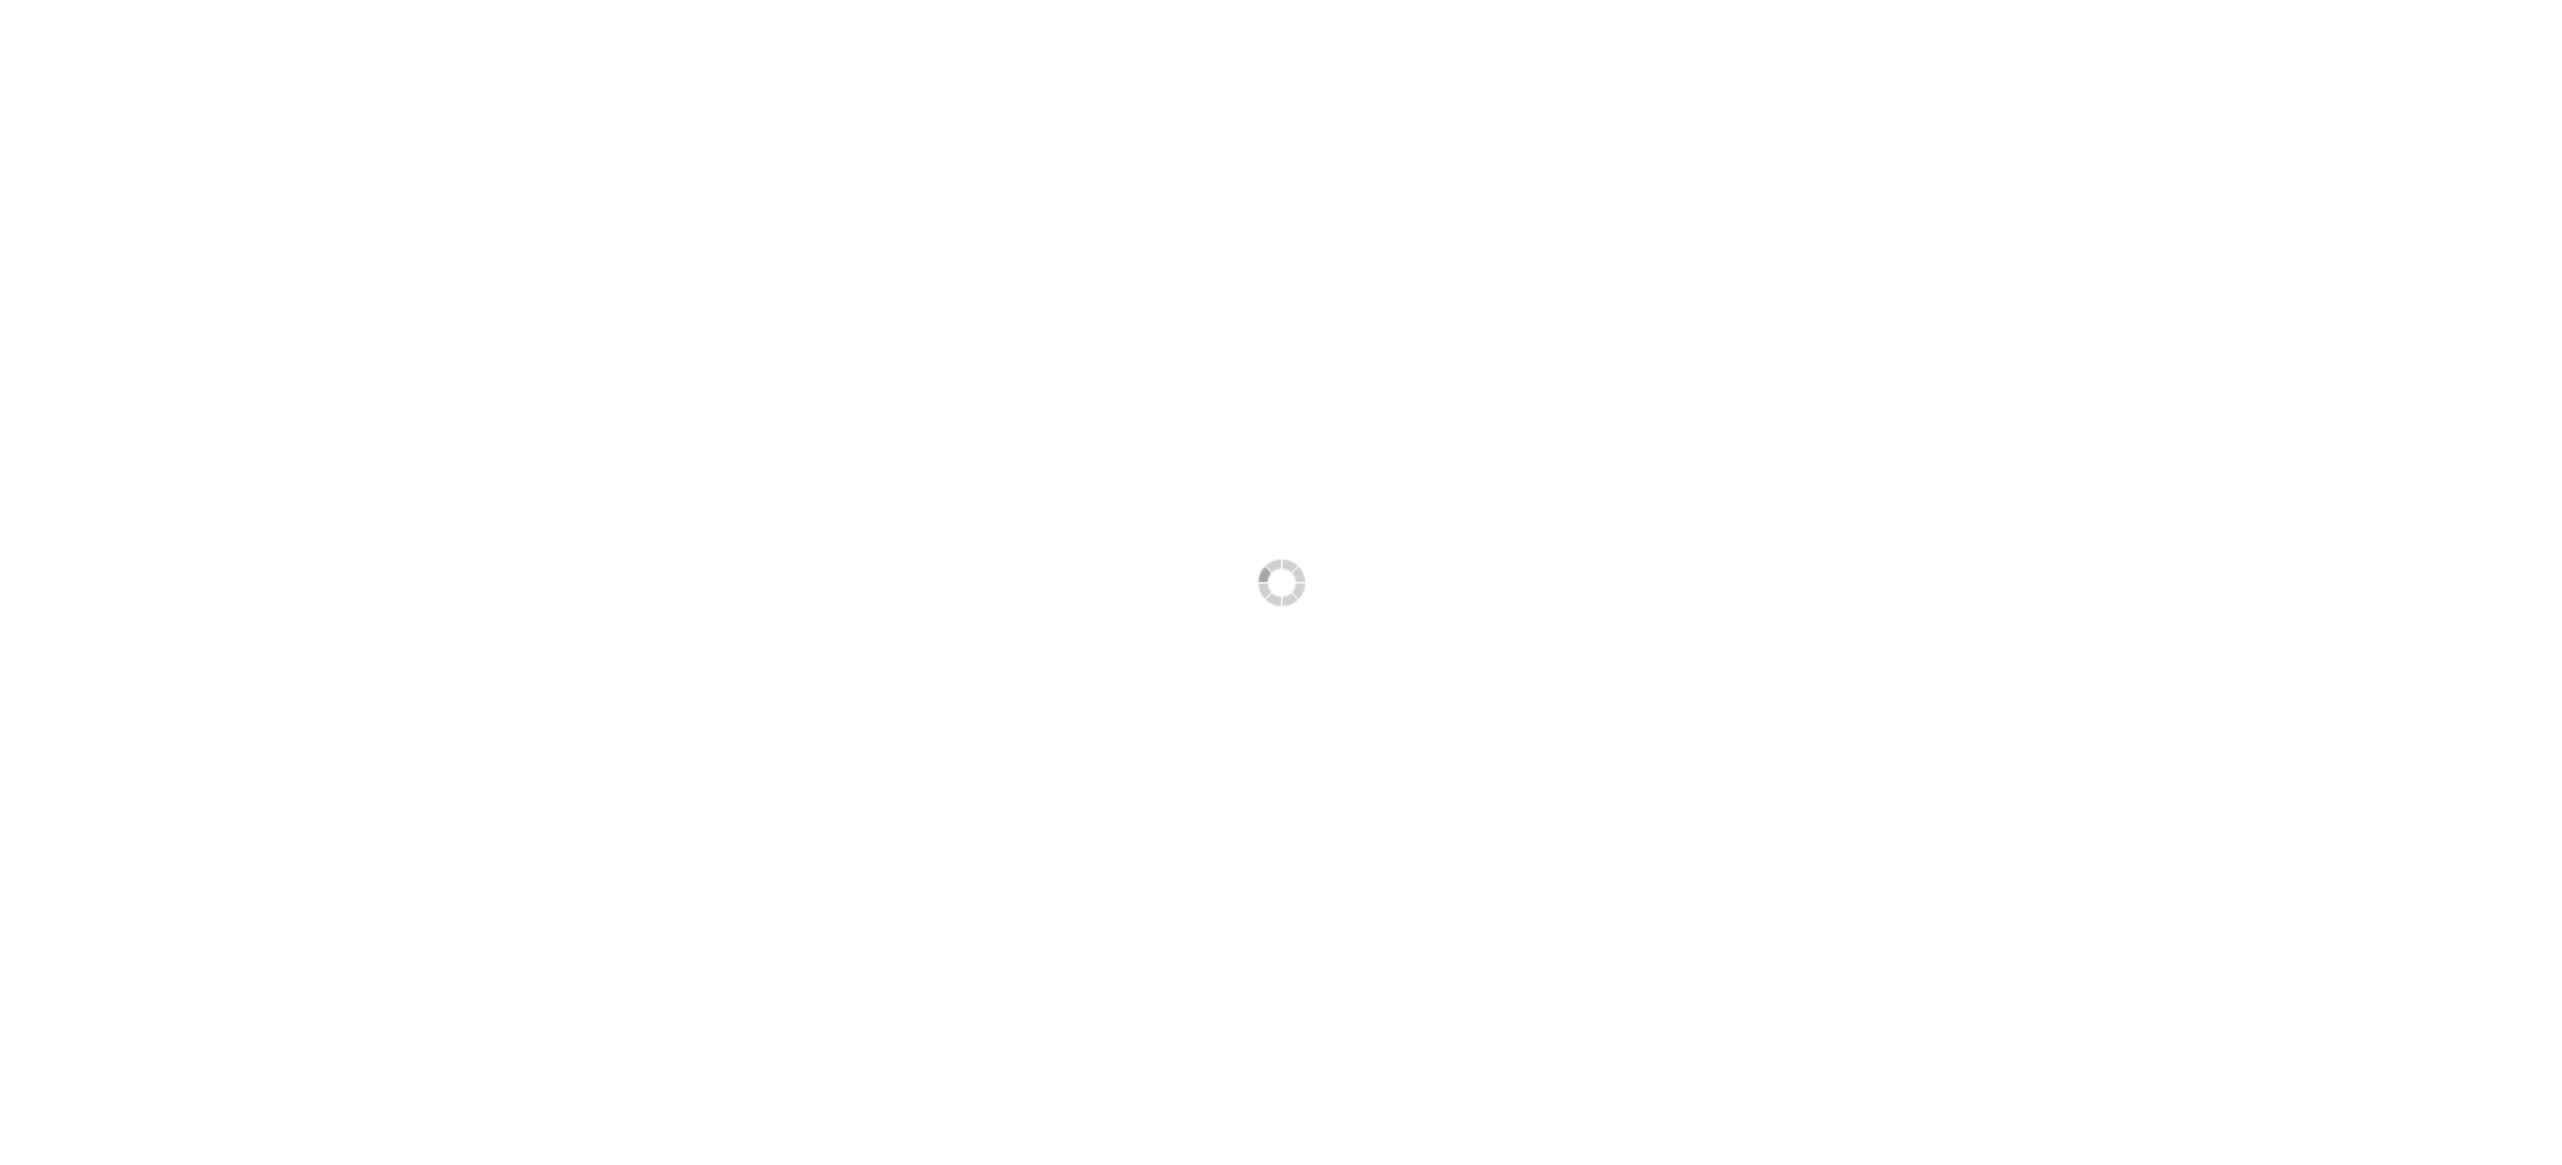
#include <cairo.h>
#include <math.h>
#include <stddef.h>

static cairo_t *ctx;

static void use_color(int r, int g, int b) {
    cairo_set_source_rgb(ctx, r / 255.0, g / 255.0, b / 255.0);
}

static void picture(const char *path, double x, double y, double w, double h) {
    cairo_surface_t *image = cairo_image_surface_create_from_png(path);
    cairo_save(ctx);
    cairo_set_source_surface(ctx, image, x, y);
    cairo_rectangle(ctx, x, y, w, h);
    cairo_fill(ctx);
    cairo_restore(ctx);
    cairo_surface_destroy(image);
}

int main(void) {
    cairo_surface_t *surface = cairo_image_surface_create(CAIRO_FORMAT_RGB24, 2562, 1165);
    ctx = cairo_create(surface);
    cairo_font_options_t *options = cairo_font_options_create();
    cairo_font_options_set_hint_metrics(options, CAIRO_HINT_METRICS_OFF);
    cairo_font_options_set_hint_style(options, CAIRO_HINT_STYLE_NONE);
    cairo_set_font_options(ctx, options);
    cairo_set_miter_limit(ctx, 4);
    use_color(255, 255, 255);
    cairo_paint(ctx);
    picture("img1.png", 1258, 559, 48, 48);
    cairo_surface_write_to_png(surface, "result.png");
    cairo_font_options_destroy(options);
    cairo_destroy(ctx);
    cairo_surface_destroy(surface);
    return 0;
}
